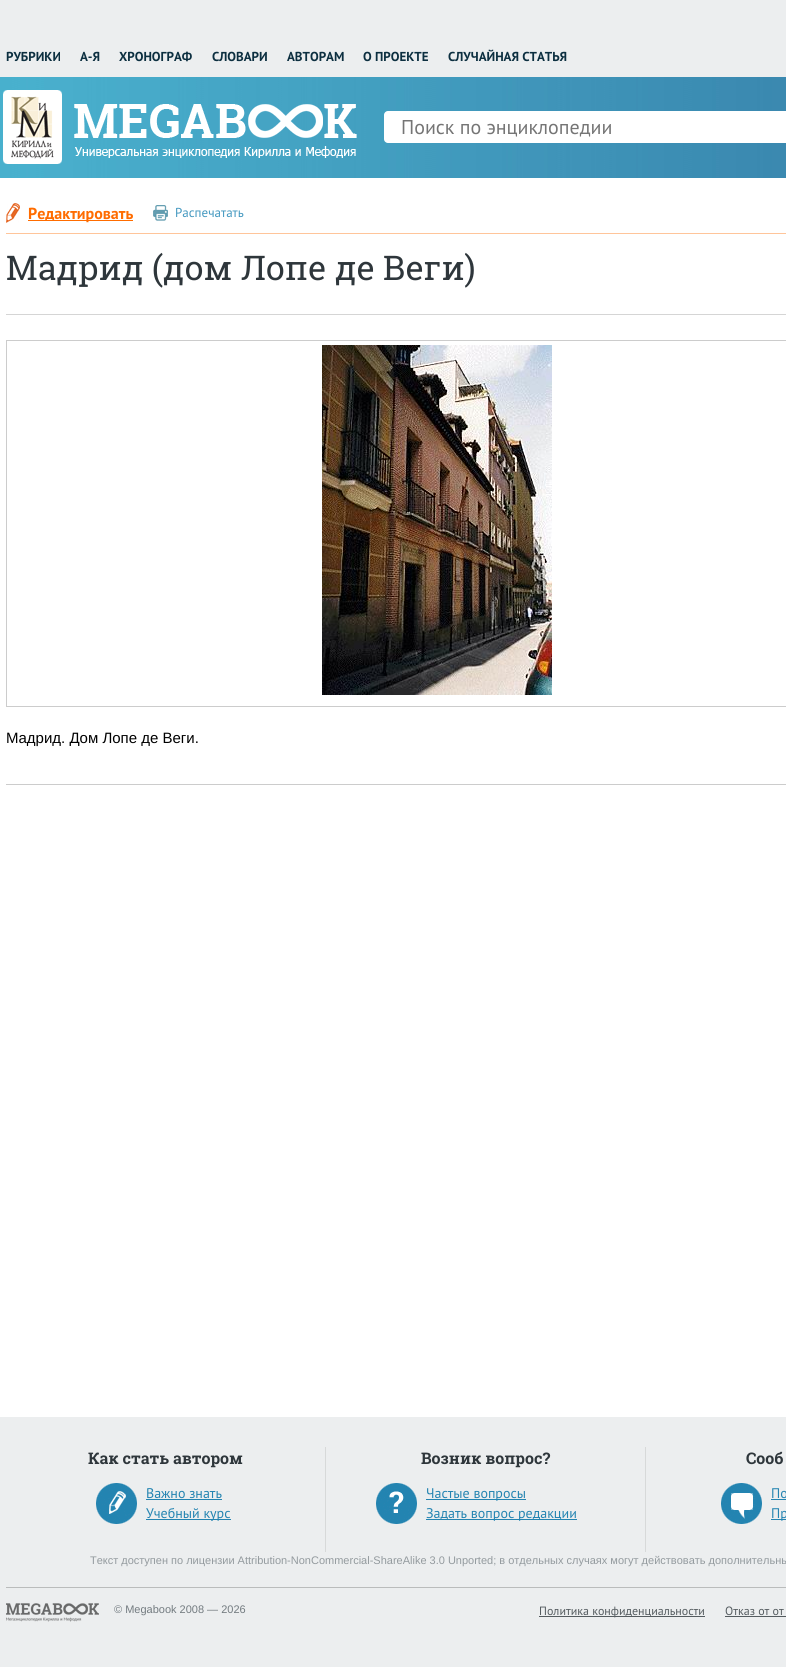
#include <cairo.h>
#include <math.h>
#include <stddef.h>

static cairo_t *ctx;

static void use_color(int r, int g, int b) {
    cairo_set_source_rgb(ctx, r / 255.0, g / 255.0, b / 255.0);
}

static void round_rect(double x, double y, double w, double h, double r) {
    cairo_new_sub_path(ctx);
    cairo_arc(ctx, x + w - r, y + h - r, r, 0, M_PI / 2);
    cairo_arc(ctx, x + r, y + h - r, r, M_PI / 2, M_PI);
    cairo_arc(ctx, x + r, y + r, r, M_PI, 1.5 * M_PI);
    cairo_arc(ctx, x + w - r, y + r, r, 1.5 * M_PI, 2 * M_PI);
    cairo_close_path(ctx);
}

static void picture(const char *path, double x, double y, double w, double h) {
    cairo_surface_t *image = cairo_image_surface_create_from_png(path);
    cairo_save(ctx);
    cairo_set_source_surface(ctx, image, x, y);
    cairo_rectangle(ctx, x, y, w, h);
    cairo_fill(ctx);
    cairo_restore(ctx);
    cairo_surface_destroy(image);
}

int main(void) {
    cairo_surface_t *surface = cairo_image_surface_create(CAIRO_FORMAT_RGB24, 786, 1667);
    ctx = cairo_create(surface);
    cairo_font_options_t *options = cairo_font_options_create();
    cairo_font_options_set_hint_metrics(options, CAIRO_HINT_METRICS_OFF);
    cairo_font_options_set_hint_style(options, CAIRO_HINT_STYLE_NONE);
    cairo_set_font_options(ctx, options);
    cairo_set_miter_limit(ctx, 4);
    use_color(255, 255, 255);
    cairo_paint(ctx);
    use_color(236, 238, 239);
    cairo_rectangle(ctx, 0, 0, 786, 77);
    cairo_fill(ctx);
    cairo_select_font_face(ctx, "PT Sans", CAIRO_FONT_SLANT_NORMAL, CAIRO_FONT_WEIGHT_BOLD);
    cairo_set_font_size(ctx, 13);
    use_color(12, 47, 64);
    cairo_move_to(ctx, 6, 61);
    cairo_show_text(ctx, "РУБРИКИ");
    cairo_move_to(ctx, 80, 61);
    cairo_show_text(ctx, "А-Я");
    cairo_move_to(ctx, 119, 61);
    cairo_show_text(ctx, "ХРОНОГРАФ");
    cairo_move_to(ctx, 212, 61);
    cairo_show_text(ctx, "СЛОВАРИ");
    cairo_move_to(ctx, 287, 61);
    cairo_show_text(ctx, "АВТОРАМ");
    cairo_move_to(ctx, 363, 61);
    cairo_show_text(ctx, "О ПРОЕКТЕ");
    cairo_move_to(ctx, 448, 61);
    cairo_show_text(ctx, "СЛУЧАЙНАЯ СТАТЬЯ");
    picture("img1.png", 0, 77, 786, 101);
    picture("img2.png", 3, 90, 354, 74);
    use_color(255, 255, 255);
    round_rect(384, 111, 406, 32, 4);
    cairo_fill(ctx);
    cairo_select_font_face(ctx, "PT Sans", CAIRO_FONT_SLANT_NORMAL, CAIRO_FONT_WEIGHT_NORMAL);
    cairo_set_font_size(ctx, 20);
    use_color(117, 117, 117);
    cairo_move_to(ctx, 401, 134);
    cairo_show_text(ctx, "Поиск по энциклопедии");
    picture("img3.png", 6, 203, 14, 20);
    use_color(255, 108, 0);
    cairo_rectangle(ctx, 28, 220, 105, 1);
    cairo_fill(ctx);
    cairo_select_font_face(ctx, "PT Sans", CAIRO_FONT_SLANT_NORMAL, CAIRO_FONT_WEIGHT_BOLD);
    cairo_set_font_size(ctx, 16);
    cairo_move_to(ctx, 28, 219);
    cairo_show_text(ctx, "Редактировать");
    picture("img4.png", 153, 205, 15, 16);
    cairo_select_font_face(ctx, "PT Sans", CAIRO_FONT_SLANT_NORMAL, CAIRO_FONT_WEIGHT_NORMAL);
    cairo_set_font_size(ctx, 13);
    use_color(66, 151, 191);
    cairo_move_to(ctx, 175, 217);
    cairo_show_text(ctx, "Распечатать");
    use_color(255, 197, 154);
    cairo_rectangle(ctx, 6, 233, 780, 1);
    cairo_fill(ctx);
    cairo_select_font_face(ctx, "Roboto Slab", CAIRO_FONT_SLANT_NORMAL, CAIRO_FONT_WEIGHT_NORMAL);
    cairo_set_font_size(ctx, 34);
    use_color(46, 54, 59);
    cairo_move_to(ctx, 6, 280);
    cairo_show_text(ctx, "Мадрид (дом Лопе де Веги)");
    use_color(213, 213, 213);
    cairo_rectangle(ctx, 6, 314, 780, 1);
    cairo_fill(ctx);
    cairo_rectangle(ctx, 6.5, 340.5, 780, 366);
    use_color(204, 204, 204);
    cairo_set_line_width(ctx, 1);
    cairo_stroke(ctx);
    picture("img5.png", 322, 345, 230, 350);
    cairo_rectangle(ctx, 6, 784, 780, 1);
    cairo_fill(ctx);
    cairo_select_font_face(ctx, "Liberation Sans", CAIRO_FONT_SLANT_NORMAL, CAIRO_FONT_WEIGHT_NORMAL);
    cairo_set_font_size(ctx, 15);
    use_color(0, 0, 0);
    cairo_move_to(ctx, 6, 743);
    cairo_show_text(ctx, "Мадрид. Дом Лопе де Веги.");
    use_color(236, 238, 239);
    cairo_rectangle(ctx, 0, 1417, 786, 250);
    cairo_fill(ctx);
    cairo_select_font_face(ctx, "Roboto Slab", CAIRO_FONT_SLANT_NORMAL, CAIRO_FONT_WEIGHT_BOLD);
    cairo_set_font_size(ctx, 16);
    use_color(46, 54, 59);
    cairo_move_to(ctx, 88, 1464);
    cairo_show_text(ctx, "Как стать автором");
    picture("img6.png", 96, 1483, 41, 41);
    cairo_select_font_face(ctx, "PT Sans", CAIRO_FONT_SLANT_NORMAL, CAIRO_FONT_WEIGHT_NORMAL);
    cairo_set_font_size(ctx, 14);
    use_color(36, 132, 177);
    cairo_move_to(ctx, 146, 1498);
    cairo_show_text(ctx, "Важно знать");
    cairo_rectangle(ctx, 146, 1499, 76, 1);
    cairo_fill(ctx);
    cairo_rectangle(ctx, 146, 1519, 85, 1);
    cairo_fill(ctx);
    cairo_move_to(ctx, 146, 1518);
    cairo_show_text(ctx, "Учебный курс");
    use_color(215, 217, 217);
    cairo_rectangle(ctx, 645, 1447, 1, 105);
    cairo_fill(ctx);
    cairo_rectangle(ctx, 325, 1447, 1, 105);
    cairo_fill(ctx);
    cairo_select_font_face(ctx, "Roboto Slab", CAIRO_FONT_SLANT_NORMAL, CAIRO_FONT_WEIGHT_BOLD);
    cairo_set_font_size(ctx, 16);
    use_color(46, 54, 59);
    cairo_move_to(ctx, 421, 1464);
    cairo_show_text(ctx, "Возник вопрос?");
    picture("img7.png", 376, 1483, 41, 41);
    use_color(36, 132, 177);
    cairo_rectangle(ctx, 426, 1499, 100, 1);
    cairo_fill(ctx);
    cairo_select_font_face(ctx, "PT Sans", CAIRO_FONT_SLANT_NORMAL, CAIRO_FONT_WEIGHT_NORMAL);
    cairo_set_font_size(ctx, 14);
    cairo_move_to(ctx, 426, 1498);
    cairo_show_text(ctx, "Частые вопросы");
    cairo_rectangle(ctx, 426, 1519, 151, 1);
    cairo_fill(ctx);
    cairo_move_to(ctx, 426, 1518);
    cairo_show_text(ctx, "Задать вопрос редакции");
    cairo_select_font_face(ctx, "Roboto Slab", CAIRO_FONT_SLANT_NORMAL, CAIRO_FONT_WEIGHT_BOLD);
    cairo_set_font_size(ctx, 16);
    use_color(46, 54, 59);
    cairo_move_to(ctx, 746, 1464);
    cairo_show_text(ctx, "Сооб");
    picture("img8.png", 721, 1483, 41, 41);
    cairo_select_font_face(ctx, "PT Sans", CAIRO_FONT_SLANT_NORMAL, CAIRO_FONT_WEIGHT_NORMAL);
    cairo_set_font_size(ctx, 14);
    use_color(36, 132, 177);
    cairo_move_to(ctx, 771, 1498);
    cairo_show_text(ctx, "По");
    cairo_rectangle(ctx, 771, 1499, 15, 1);
    cairo_fill(ctx);
    cairo_rectangle(ctx, 771, 1519, 15, 1);
    cairo_fill(ctx);
    cairo_move_to(ctx, 771, 1518);
    cairo_show_text(ctx, "Пр");
    use_color(186, 188, 188);
    cairo_rectangle(ctx, 6, 1587, 780, 1);
    cairo_fill(ctx);
    cairo_select_font_face(ctx, "Liberation Sans", CAIRO_FONT_SLANT_NORMAL, CAIRO_FONT_WEIGHT_NORMAL);
    cairo_set_font_size(ctx, 11);
    use_color(147, 154, 158);
    cairo_move_to(ctx, 90, 1564);
    cairo_show_text(ctx, "Текст доступен по лицензии Attribution-NonCommercial-ShareAlike 3.0 Unported; в отдельных случаях могут действовать дополнительны");
    picture("img9.png", 6, 1603, 93, 19);
    use_color(115, 123, 128);
    cairo_move_to(ctx, 114, 1613);
    cairo_show_text(ctx, "© Megabook 2008 — 2026");
    use_color(84, 91, 95);
    cairo_rectangle(ctx, 539, 1616, 166, 1);
    cairo_fill(ctx);
    cairo_select_font_face(ctx, "PT Sans", CAIRO_FONT_SLANT_NORMAL, CAIRO_FONT_WEIGHT_NORMAL);
    cairo_set_font_size(ctx, 12);
    cairo_move_to(ctx, 539, 1615);
    cairo_show_text(ctx, "Политика конфиденциальности");
    cairo_move_to(ctx, 725, 1615);
    cairo_show_text(ctx, "Отказ от от");
    cairo_rectangle(ctx, 725, 1616, 61, 1);
    cairo_fill(ctx);
    cairo_surface_write_to_png(surface, "result.png");
    cairo_font_options_destroy(options);
    cairo_destroy(ctx);
    cairo_surface_destroy(surface);
    return 0;
}
